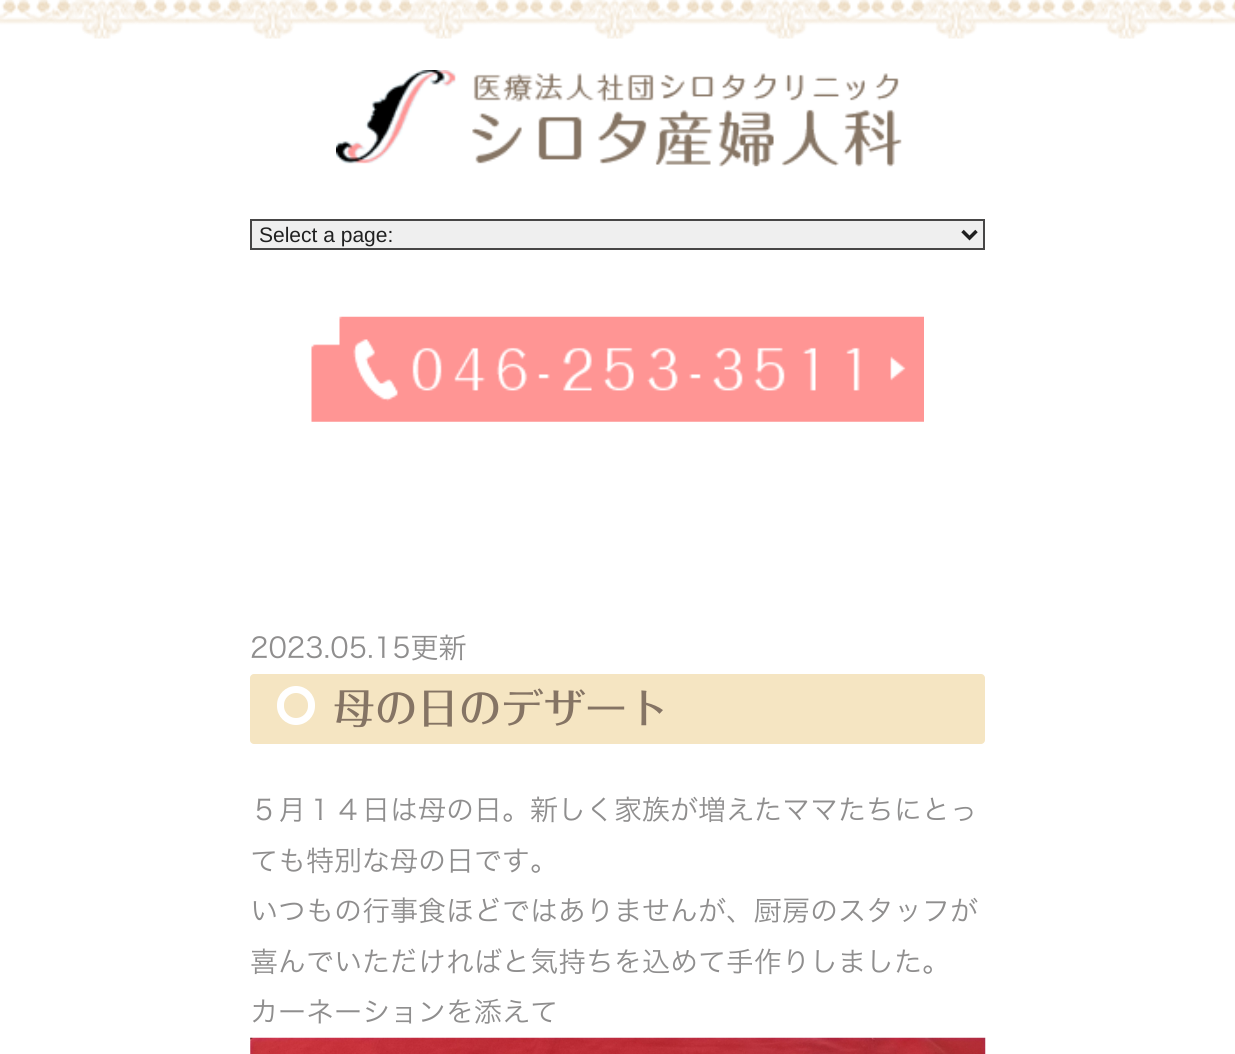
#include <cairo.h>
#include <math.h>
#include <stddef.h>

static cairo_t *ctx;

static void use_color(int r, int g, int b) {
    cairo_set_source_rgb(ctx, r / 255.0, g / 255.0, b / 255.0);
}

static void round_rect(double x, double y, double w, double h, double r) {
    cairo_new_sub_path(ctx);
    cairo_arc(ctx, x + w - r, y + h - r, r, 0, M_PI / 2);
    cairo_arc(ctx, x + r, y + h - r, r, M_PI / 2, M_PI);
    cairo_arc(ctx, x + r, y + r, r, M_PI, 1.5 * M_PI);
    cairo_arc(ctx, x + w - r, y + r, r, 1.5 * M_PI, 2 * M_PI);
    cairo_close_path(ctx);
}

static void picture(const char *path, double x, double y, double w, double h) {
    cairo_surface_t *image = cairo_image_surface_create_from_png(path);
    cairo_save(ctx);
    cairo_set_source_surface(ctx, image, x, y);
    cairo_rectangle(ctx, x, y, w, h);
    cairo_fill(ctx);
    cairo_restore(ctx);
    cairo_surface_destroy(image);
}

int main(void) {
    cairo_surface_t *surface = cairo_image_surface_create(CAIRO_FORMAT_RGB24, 1235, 1054);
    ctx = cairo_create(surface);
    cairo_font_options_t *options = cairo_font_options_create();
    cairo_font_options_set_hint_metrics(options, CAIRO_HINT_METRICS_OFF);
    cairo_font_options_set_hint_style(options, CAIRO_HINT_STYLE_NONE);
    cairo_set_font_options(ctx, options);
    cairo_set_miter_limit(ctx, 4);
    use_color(255, 255, 255);
    cairo_paint(ctx);
    picture("img1.png", 0, 0, 1235, 39);
    picture("img2.png", 336, 70, 566, 97);
    use_color(239, 239, 239);
    cairo_rectangle(ctx, 251, 220, 733, 29);
    cairo_fill_preserve(ctx);
    use_color(71, 70, 70);
    cairo_stroke(ctx);
    cairo_new_path(ctx);
    cairo_move_to(ctx, 962.5, 231);
    cairo_line_to(ctx, 969.5, 238);
    cairo_line_to(ctx, 976.5, 231);
    use_color(32, 32, 32);
    cairo_set_line_width(ctx, 3.5);
    cairo_stroke(ctx);
    cairo_select_font_face(ctx, "Liberation Sans", CAIRO_FONT_SLANT_NORMAL, CAIRO_FONT_WEIGHT_NORMAL);
    cairo_set_font_size(ctx, 21);
    cairo_move_to(ctx, 259, 242);
    cairo_show_text(ctx, "Select a page:");
    picture("img3.png", 311, 316, 613, 106);
    cairo_select_font_face(ctx, "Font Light", CAIRO_FONT_SLANT_NORMAL, CAIRO_FONT_WEIGHT_NORMAL);
    cairo_set_font_size(ctx, 28);
    use_color(143, 142, 142);
    cairo_move_to(ctx, 250, 658);
    cairo_show_text(ctx, "2023.05.15更新");
    use_color(245, 229, 194);
    round_rect(250, 674, 735, 70, 4);
    cairo_fill(ctx);
    round_rect(280.5, 689.5, 31, 32, 15.5);
    use_color(255, 255, 255);
    cairo_set_line_width(ctx, 7);
    cairo_stroke(ctx);
    cairo_select_font_face(ctx, "Font Medium", CAIRO_FONT_SLANT_NORMAL, CAIRO_FONT_WEIGHT_NORMAL);
    cairo_set_font_size(ctx, 42);
    use_color(133, 116, 100);
    cairo_move_to(ctx, 333, 724);
    cairo_show_text(ctx, "母の日のデザート");
    cairo_select_font_face(ctx, "Font Light", CAIRO_FONT_SLANT_NORMAL, CAIRO_FONT_WEIGHT_NORMAL);
    cairo_set_font_size(ctx, 28);
    use_color(143, 142, 142);
    cairo_move_to(ctx, 250, 820);
    cairo_show_text(ctx, "５月１４日は母の日。新しく家族が増えたママたちにとっ");
    cairo_move_to(ctx, 250, 871);
    cairo_show_text(ctx, "ても特別な母の日です。");
    cairo_move_to(ctx, 250, 921);
    cairo_show_text(ctx, "いつもの行事食ほどではありませんが、厨房のスタッフが");
    cairo_move_to(ctx, 250, 972);
    cairo_show_text(ctx, "喜んでいただければと気持ちを込めて手作りしました。");
    cairo_move_to(ctx, 250, 1022);
    cairo_show_text(ctx, "カーネーションを添えて");
    picture("img4.png", 250, 1037, 736, 17);
    cairo_surface_write_to_png(surface, "result.png");
    cairo_font_options_destroy(options);
    cairo_destroy(ctx);
    cairo_surface_destroy(surface);
    return 0;
}
